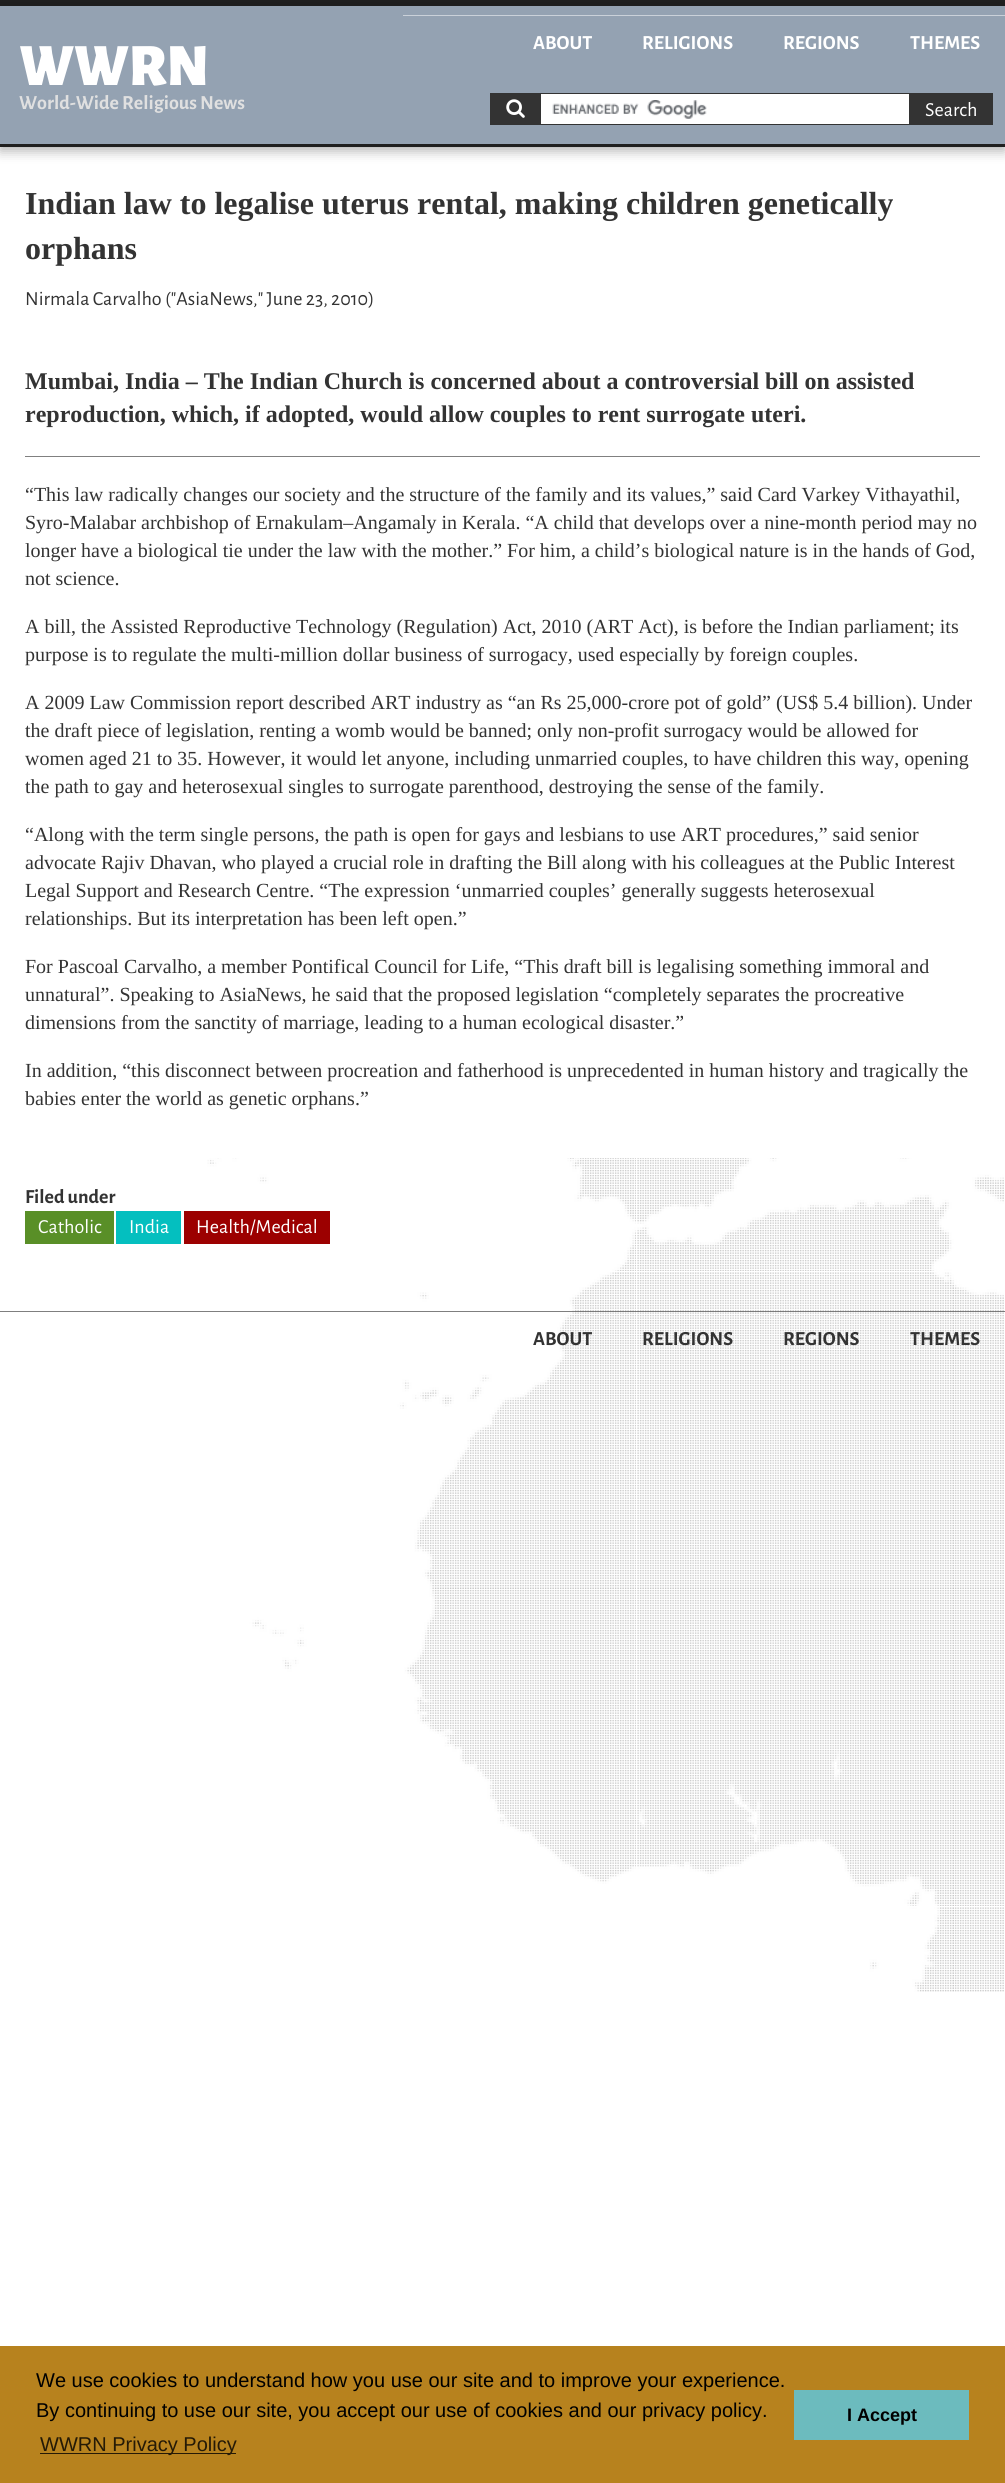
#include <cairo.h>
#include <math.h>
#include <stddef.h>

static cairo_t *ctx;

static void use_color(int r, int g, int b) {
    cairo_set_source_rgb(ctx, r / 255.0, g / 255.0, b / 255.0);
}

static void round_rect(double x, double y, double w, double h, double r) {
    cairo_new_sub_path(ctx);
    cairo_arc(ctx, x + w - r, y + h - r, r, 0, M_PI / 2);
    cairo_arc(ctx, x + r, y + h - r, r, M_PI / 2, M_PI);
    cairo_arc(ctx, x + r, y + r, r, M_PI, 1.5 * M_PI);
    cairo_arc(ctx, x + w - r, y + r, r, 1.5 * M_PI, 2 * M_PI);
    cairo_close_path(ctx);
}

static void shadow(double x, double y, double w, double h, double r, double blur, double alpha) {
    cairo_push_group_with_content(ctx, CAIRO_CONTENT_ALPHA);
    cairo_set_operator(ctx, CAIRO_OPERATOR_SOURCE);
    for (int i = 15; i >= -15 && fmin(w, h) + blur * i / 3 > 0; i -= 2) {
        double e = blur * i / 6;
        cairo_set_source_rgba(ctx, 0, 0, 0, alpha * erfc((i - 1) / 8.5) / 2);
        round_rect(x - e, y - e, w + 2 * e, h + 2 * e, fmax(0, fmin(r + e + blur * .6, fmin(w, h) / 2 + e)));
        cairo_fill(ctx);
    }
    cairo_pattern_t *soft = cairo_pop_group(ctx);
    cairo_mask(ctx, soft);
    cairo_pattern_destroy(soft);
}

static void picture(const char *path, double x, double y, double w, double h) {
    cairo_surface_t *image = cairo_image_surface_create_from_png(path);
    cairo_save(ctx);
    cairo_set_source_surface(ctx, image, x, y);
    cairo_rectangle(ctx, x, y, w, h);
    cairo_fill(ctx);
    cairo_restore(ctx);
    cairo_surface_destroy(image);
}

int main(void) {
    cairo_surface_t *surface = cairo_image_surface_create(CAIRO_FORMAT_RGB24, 1005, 2483);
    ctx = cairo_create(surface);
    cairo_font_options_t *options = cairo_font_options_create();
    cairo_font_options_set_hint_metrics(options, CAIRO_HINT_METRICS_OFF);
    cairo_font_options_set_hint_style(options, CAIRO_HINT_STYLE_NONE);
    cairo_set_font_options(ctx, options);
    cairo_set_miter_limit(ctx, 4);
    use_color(255, 255, 255);
    cairo_paint(ctx);
    picture("img1.png", 0, 1158, 1004, 834);
    use_color(31, 31, 31);
    cairo_rectangle(ctx, 0, 0, 1005, 6);
    cairo_fill(ctx);
    cairo_save(ctx);
    cairo_set_fill_rule(ctx, CAIRO_FILL_RULE_EVEN_ODD);
    cairo_new_path(ctx);
    cairo_move_to(ctx, 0, 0);
    cairo_line_to(ctx, 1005, 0);
    cairo_line_to(ctx, 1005, 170);
    cairo_line_to(ctx, 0, 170);
    cairo_close_path(ctx);
    cairo_move_to(ctx, 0, 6);
    cairo_line_to(ctx, 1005, 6);
    cairo_line_to(ctx, 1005, 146);
    cairo_line_to(ctx, 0, 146);
    cairo_close_path(ctx);
    cairo_clip(ctx);
    use_color(0, 0, 0);
    shadow(0, 11, 1005, 140, 0, 6, 0.3);
    cairo_restore(ctx);
    cairo_set_source_rgba(ctx, 0.165, 0.278, 0.404, 0.5);
    cairo_rectangle(ctx, 0, 6, 1005, 138);
    cairo_fill(ctx);
    use_color(31, 31, 31);
    cairo_rectangle(ctx, 0, 144, 1005, 3);
    cairo_fill(ctx);
    use_color(202, 209, 217);
    cairo_rectangle(ctx, 403, 15, 602, 1);
    cairo_fill(ctx);
    cairo_select_font_face(ctx, "Alegreya Sans", CAIRO_FONT_SLANT_NORMAL, CAIRO_FONT_WEIGHT_BOLD);
    cairo_set_font_size(ctx, 20);
    use_color(255, 255, 255);
    cairo_move_to(ctx, 533, 49);
    cairo_show_text(ctx, "ABOUT");
    cairo_move_to(ctx, 642, 49);
    cairo_show_text(ctx, "RELIGIONS");
    cairo_move_to(ctx, 783, 49);
    cairo_show_text(ctx, "REGIONS");
    cairo_move_to(ctx, 910, 49);
    cairo_show_text(ctx, "THEMES");
    cairo_select_font_face(ctx, "Alegreya Sans Black", CAIRO_FONT_SLANT_NORMAL, CAIRO_FONT_WEIGHT_NORMAL);
    cairo_set_font_size(ctx, 60);
    cairo_move_to(ctx, 19, 85);
    cairo_show_text(ctx, "WWRN");
    cairo_select_font_face(ctx, "Alegreya Sans", CAIRO_FONT_SLANT_NORMAL, CAIRO_FONT_WEIGHT_BOLD);
    cairo_set_font_size(ctx, 20);
    use_color(224, 224, 224);
    cairo_move_to(ctx, 19, 109);
    cairo_show_text(ctx, "World-Wide Religious News");
    use_color(51, 51, 51);
    cairo_rectangle(ctx, 490, 93, 50, 32);
    cairo_fill(ctx);
    picture("img2.png", 506, 99, 19, 19);
    use_color(255, 255, 255);
    cairo_rectangle(ctx, 541, 94, 368, 30);
    cairo_fill(ctx);
    picture("img3.png", 552, 100, 155, 19);
    cairo_rectangle(ctx, 540.5, 93.5, 369, 31);
    use_color(51, 51, 51);
    cairo_set_line_width(ctx, 1);
    cairo_stroke(ctx);
    cairo_rectangle(ctx, 910, 93, 83, 32);
    cairo_fill(ctx);
    cairo_select_font_face(ctx, "Alegreya Sans", CAIRO_FONT_SLANT_NORMAL, CAIRO_FONT_WEIGHT_NORMAL);
    use_color(255, 255, 255);
    cairo_move_to(ctx, 925, 116);
    cairo_show_text(ctx, "Search");
    cairo_select_font_face(ctx, "Liberation Serif", CAIRO_FONT_SLANT_NORMAL, CAIRO_FONT_WEIGHT_BOLD);
    cairo_set_font_size(ctx, 32);
    use_color(51, 51, 51);
    cairo_move_to(ctx, 25, 214);
    cairo_show_text(ctx, "Indian law to legalise uterus rental, making children genetically");
    cairo_move_to(ctx, 25, 259);
    cairo_show_text(ctx, "orphans");
    cairo_select_font_face(ctx, "Alegreya Sans", CAIRO_FONT_SLANT_NORMAL, CAIRO_FONT_WEIGHT_NORMAL);
    cairo_set_font_size(ctx, 20);
    cairo_move_to(ctx, 25, 305);
    cairo_show_text(ctx, "Nirmala Carvalho (\"AsiaNews,\" June 23, 2010)");
    use_color(128, 128, 128);
    cairo_rectangle(ctx, 25, 456, 955, 1);
    cairo_fill(ctx);
    cairo_select_font_face(ctx, "Liberation Serif", CAIRO_FONT_SLANT_NORMAL, CAIRO_FONT_WEIGHT_BOLD);
    cairo_set_font_size(ctx, 24);
    use_color(51, 51, 51);
    cairo_move_to(ctx, 25, 389);
    cairo_show_text(ctx, "Mumbai, India – The Indian Church is concerned about a controversial bill on assisted");
    cairo_move_to(ctx, 25, 422);
    cairo_show_text(ctx, "reproduction, which, if adopted, would allow couples to rent surrogate uteri.");
    cairo_select_font_face(ctx, "Liberation Serif", CAIRO_FONT_SLANT_NORMAL, CAIRO_FONT_WEIGHT_NORMAL);
    cairo_set_font_size(ctx, 20);
    cairo_move_to(ctx, 25, 501);
    cairo_show_text(ctx, "“This law radically changes our society and the structure of the family and its values,” said Card Varkey Vithayathil,");
    cairo_move_to(ctx, 25, 529);
    cairo_show_text(ctx, "Syro-Malabar archbishop of Ernakulam–Angamaly in Kerala. “A child that develops over a nine-month period may no");
    cairo_move_to(ctx, 25, 557);
    cairo_show_text(ctx, "longer have a biological tie under the law with the mother.” For him, a child’s biological nature is in the hands of God,");
    cairo_move_to(ctx, 25, 585);
    cairo_show_text(ctx, "not science.");
    cairo_move_to(ctx, 25, 633);
    cairo_show_text(ctx, "A bill, the Assisted Reproductive Technology (Regulation) Act, 2010 (ART Act), is before the Indian parliament; its");
    cairo_move_to(ctx, 25, 661);
    cairo_show_text(ctx, "purpose is to regulate the multi-million dollar business of surrogacy, used especially by foreign couples.");
    cairo_move_to(ctx, 25, 709);
    cairo_show_text(ctx, "A 2009 Law Commission report described ART industry as “an Rs 25,000-crore pot of gold” (US$ 5.4 billion). Under");
    cairo_move_to(ctx, 25, 737);
    cairo_show_text(ctx, "the draft piece of legislation, renting a womb would be banned; only non-profit surrogacy would be allowed for");
    cairo_move_to(ctx, 25, 765);
    cairo_show_text(ctx, "women aged 21 to 35. However, it would let anyone, including unmarried couples, to have children this way, opening");
    cairo_move_to(ctx, 25, 793);
    cairo_show_text(ctx, "the path to gay and heterosexual singles to surrogate parenthood, destroying the sense of the family.");
    cairo_move_to(ctx, 25, 841);
    cairo_show_text(ctx, "“Along with the term single persons, the path is open for gays and lesbians to use ART procedures,” said senior");
    cairo_move_to(ctx, 25, 869);
    cairo_show_text(ctx, "advocate Rajiv Dhavan, who played a crucial role in drafting the Bill along with his colleagues at the Public Interest");
    cairo_move_to(ctx, 25, 897);
    cairo_show_text(ctx, "Legal Support and Research Centre. “The expression ‘unmarried couples’ generally suggests heterosexual");
    cairo_move_to(ctx, 25, 925);
    cairo_show_text(ctx, "relationships. But its interpretation has been left open.”");
    cairo_move_to(ctx, 25, 973);
    cairo_show_text(ctx, "For Pascoal Carvalho, a member Pontifical Council for Life, “This draft bill is legalising something immoral and");
    cairo_move_to(ctx, 25, 1001);
    cairo_show_text(ctx, "unnatural”. Speaking to AsiaNews, he said that the proposed legislation “completely separates the procreative");
    cairo_move_to(ctx, 25, 1029);
    cairo_show_text(ctx, "dimensions from the sanctity of marriage, leading to a human ecological disaster.”");
    cairo_move_to(ctx, 25, 1077);
    cairo_show_text(ctx, "In addition, “this disconnect between procreation and fatherhood is unprecedented in human history and tragically the");
    cairo_move_to(ctx, 25, 1105);
    cairo_show_text(ctx, "babies enter the world as genetic orphans.”");
    cairo_select_font_face(ctx, "Alegreya Sans", CAIRO_FONT_SLANT_NORMAL, CAIRO_FONT_WEIGHT_BOLD);
    cairo_move_to(ctx, 25, 1203);
    cairo_show_text(ctx, "Filed under");
    use_color(89, 143, 39);
    cairo_rectangle(ctx, 25, 1211, 89, 33);
    cairo_fill(ctx);
    cairo_select_font_face(ctx, "Alegreya Sans", CAIRO_FONT_SLANT_NORMAL, CAIRO_FONT_WEIGHT_NORMAL);
    use_color(255, 255, 255);
    cairo_move_to(ctx, 38, 1233);
    cairo_show_text(ctx, "Catholic");
    use_color(4, 191, 191);
    cairo_rectangle(ctx, 116, 1211, 65, 33);
    cairo_fill(ctx);
    use_color(255, 255, 255);
    cairo_move_to(ctx, 129, 1233);
    cairo_show_text(ctx, "India");
    use_color(156, 0, 0);
    cairo_rectangle(ctx, 184, 1211, 146, 33);
    cairo_fill(ctx);
    use_color(255, 255, 255);
    cairo_move_to(ctx, 196, 1233);
    cairo_show_text(ctx, "Health/Medical");
    cairo_set_source_rgba(ctx, 0, 0, 0, 0.5);
    cairo_rectangle(ctx, 0, 1311, 1005, 1);
    cairo_fill(ctx);
    cairo_select_font_face(ctx, "Alegreya Sans", CAIRO_FONT_SLANT_NORMAL, CAIRO_FONT_WEIGHT_BOLD);
    use_color(51, 51, 51);
    cairo_move_to(ctx, 533, 1345);
    cairo_show_text(ctx, "ABOUT");
    cairo_move_to(ctx, 642, 1345);
    cairo_show_text(ctx, "RELIGIONS");
    cairo_move_to(ctx, 783, 1345);
    cairo_show_text(ctx, "REGIONS");
    cairo_move_to(ctx, 910, 1345);
    cairo_show_text(ctx, "THEMES");
    use_color(183, 130, 30);
    cairo_rectangle(ctx, 0, 2346, 1005, 137);
    cairo_fill(ctx);
    cairo_select_font_face(ctx, "Liberation Sans", CAIRO_FONT_SLANT_NORMAL, CAIRO_FONT_WEIGHT_NORMAL);
    use_color(0, 0, 0);
    cairo_move_to(ctx, 36, 2387);
    cairo_show_text(ctx, "We use cookies to understand how you use our site and to improve your experience.");
    cairo_move_to(ctx, 36, 2417);
    cairo_show_text(ctx, "By continuing to use our site, you accept our use of cookies and our privacy policy.");
    use_color(37, 26, 6);
    cairo_rectangle(ctx, 40, 2453, 196, 1);
    cairo_fill(ctx);
    cairo_move_to(ctx, 40, 2451);
    cairo_show_text(ctx, "WWRN Privacy Policy");
    use_color(108, 187, 190);
    cairo_rectangle(ctx, 794, 2390, 175, 50);
    cairo_fill(ctx);
    cairo_select_font_face(ctx, "Liberation Sans", CAIRO_FONT_SLANT_NORMAL, CAIRO_FONT_WEIGHT_BOLD);
    cairo_set_font_size(ctx, 18);
    use_color(0, 0, 0);
    cairo_move_to(ctx, 847, 2421);
    cairo_show_text(ctx, "I Accept");
    cairo_surface_write_to_png(surface, "result.png");
    cairo_font_options_destroy(options);
    cairo_destroy(ctx);
    cairo_surface_destroy(surface);
    return 0;
}
